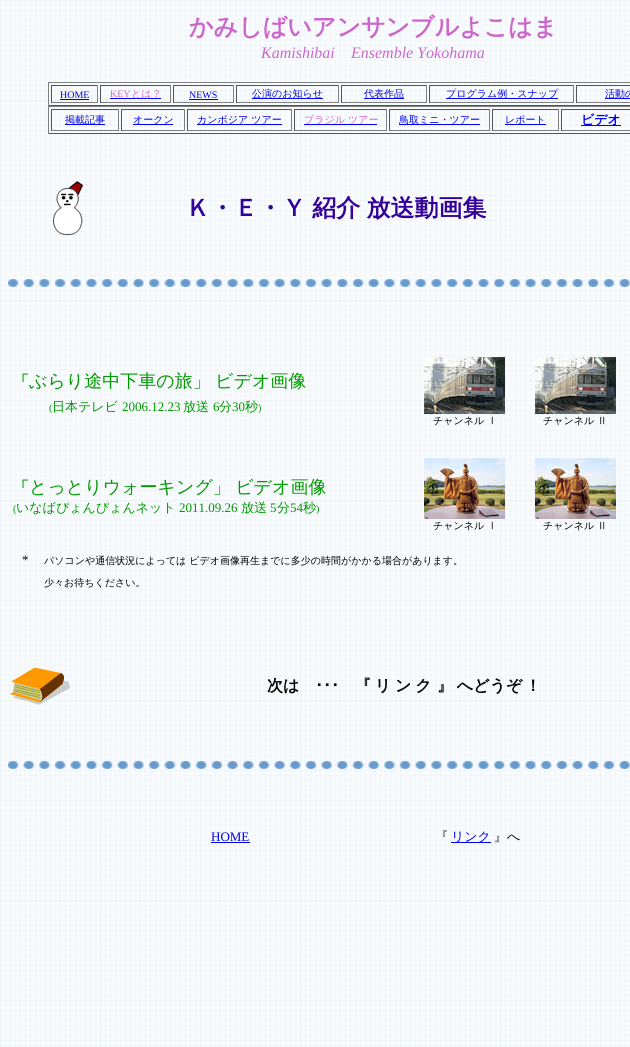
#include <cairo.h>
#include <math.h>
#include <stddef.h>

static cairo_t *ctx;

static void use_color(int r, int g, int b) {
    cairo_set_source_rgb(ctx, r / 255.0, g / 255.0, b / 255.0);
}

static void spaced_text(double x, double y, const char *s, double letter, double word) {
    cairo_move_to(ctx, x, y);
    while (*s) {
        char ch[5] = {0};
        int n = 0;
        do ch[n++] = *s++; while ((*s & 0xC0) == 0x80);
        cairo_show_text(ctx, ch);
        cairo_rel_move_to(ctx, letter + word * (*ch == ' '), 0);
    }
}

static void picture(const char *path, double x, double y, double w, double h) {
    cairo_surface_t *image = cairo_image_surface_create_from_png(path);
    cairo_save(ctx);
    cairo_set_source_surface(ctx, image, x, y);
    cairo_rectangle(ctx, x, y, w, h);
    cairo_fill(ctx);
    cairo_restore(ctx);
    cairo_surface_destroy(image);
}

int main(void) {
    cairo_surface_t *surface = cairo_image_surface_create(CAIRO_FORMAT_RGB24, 630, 1047);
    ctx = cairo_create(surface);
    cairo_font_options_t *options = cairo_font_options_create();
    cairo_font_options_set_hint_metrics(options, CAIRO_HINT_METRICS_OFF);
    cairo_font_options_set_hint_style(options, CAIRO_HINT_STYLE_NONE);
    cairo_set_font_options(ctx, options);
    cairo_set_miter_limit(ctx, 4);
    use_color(255, 255, 255);
    cairo_paint(ctx);
    picture("img1.png", 0, 0, 630, 1047);
    cairo_select_font_face(ctx, "WenQuanYi Zen Hei", CAIRO_FONT_SLANT_NORMAL, CAIRO_FONT_WEIGHT_BOLD);
    cairo_set_font_size(ctx, 24);
    use_color(204, 102, 204);
    cairo_move_to(ctx, 189, 35);
    cairo_show_text(ctx, "かみしばいアンサンブルよこはま");
    cairo_select_font_face(ctx, "Liberation Serif", CAIRO_FONT_SLANT_ITALIC, CAIRO_FONT_WEIGHT_NORMAL);
    cairo_set_font_size(ctx, 16);
    cairo_move_to(ctx, 261, 58);
    cairo_show_text(ctx, "Kamishibai");
    cairo_move_to(ctx, 351, 58);
    cairo_show_text(ctx, "Ensemble Yokohama");
    use_color(128, 128, 128);
    cairo_rectangle(ctx, 48, 82, 582, 1);
    cairo_fill(ctx);
    use_color(85, 85, 85);
    cairo_rectangle(ctx, 48, 105, 582, 1);
    cairo_fill(ctx);
    use_color(128, 128, 128);
    cairo_rectangle(ctx, 48, 82, 1, 24);
    cairo_fill(ctx);
    use_color(85, 85, 85);
    cairo_rectangle(ctx, 51, 85, 47, 1);
    cairo_fill(ctx);
    use_color(128, 128, 128);
    cairo_rectangle(ctx, 97, 85, 1, 18);
    cairo_fill(ctx);
    cairo_rectangle(ctx, 51, 102, 47, 1);
    cairo_fill(ctx);
    use_color(85, 85, 85);
    cairo_rectangle(ctx, 51, 85, 1, 18);
    cairo_fill(ctx);
    cairo_select_font_face(ctx, "Liberation Serif", CAIRO_FONT_SLANT_NORMAL, CAIRO_FONT_WEIGHT_NORMAL);
    cairo_set_font_size(ctx, 10);
    use_color(0, 0, 238);
    cairo_move_to(ctx, 60, 98);
    cairo_show_text(ctx, "HOME");
    cairo_rectangle(ctx, 60, 99, 29, 1);
    cairo_fill(ctx);
    use_color(85, 85, 85);
    cairo_rectangle(ctx, 100, 85, 71, 1);
    cairo_fill(ctx);
    use_color(128, 128, 128);
    cairo_rectangle(ctx, 170, 85, 1, 18);
    cairo_fill(ctx);
    cairo_rectangle(ctx, 100, 102, 71, 1);
    cairo_fill(ctx);
    use_color(85, 85, 85);
    cairo_rectangle(ctx, 100, 85, 1, 18);
    cairo_fill(ctx);
    use_color(204, 102, 204);
    cairo_move_to(ctx, 110, 97);
    cairo_show_text(ctx, "KEY");
    use_color(0, 0, 238);
    cairo_rectangle(ctx, 110, 98, 51, 1);
    cairo_fill(ctx);
    cairo_select_font_face(ctx, "WenQuanYi Zen Hei Medium", CAIRO_FONT_SLANT_NORMAL, CAIRO_FONT_WEIGHT_NORMAL);
    use_color(204, 102, 204);
    cairo_move_to(ctx, 131, 97);
    cairo_show_text(ctx, "とは？");
    use_color(85, 85, 85);
    cairo_rectangle(ctx, 173, 85, 61, 1);
    cairo_fill(ctx);
    use_color(128, 128, 128);
    cairo_rectangle(ctx, 233, 85, 1, 18);
    cairo_fill(ctx);
    cairo_rectangle(ctx, 173, 102, 61, 1);
    cairo_fill(ctx);
    use_color(85, 85, 85);
    cairo_rectangle(ctx, 173, 85, 1, 18);
    cairo_fill(ctx);
    cairo_select_font_face(ctx, "Liberation Serif", CAIRO_FONT_SLANT_NORMAL, CAIRO_FONT_WEIGHT_NORMAL);
    use_color(0, 0, 238);
    cairo_move_to(ctx, 189, 98);
    cairo_show_text(ctx, "NEWS");
    cairo_rectangle(ctx, 189, 99, 29, 1);
    cairo_fill(ctx);
    use_color(85, 85, 85);
    cairo_rectangle(ctx, 236, 85, 103, 1);
    cairo_fill(ctx);
    use_color(128, 128, 128);
    cairo_rectangle(ctx, 338, 85, 1, 18);
    cairo_fill(ctx);
    cairo_rectangle(ctx, 236, 102, 103, 1);
    cairo_fill(ctx);
    use_color(85, 85, 85);
    cairo_rectangle(ctx, 236, 85, 1, 18);
    cairo_fill(ctx);
    use_color(0, 0, 238);
    cairo_rectangle(ctx, 252, 98, 71, 1);
    cairo_fill(ctx);
    cairo_select_font_face(ctx, "WenQuanYi Zen Hei Medium", CAIRO_FONT_SLANT_NORMAL, CAIRO_FONT_WEIGHT_NORMAL);
    cairo_move_to(ctx, 252, 97);
    cairo_show_text(ctx, "公演のお知らせ");
    use_color(85, 85, 85);
    cairo_rectangle(ctx, 341, 85, 86, 1);
    cairo_fill(ctx);
    use_color(128, 128, 128);
    cairo_rectangle(ctx, 426, 85, 1, 18);
    cairo_fill(ctx);
    cairo_rectangle(ctx, 341, 102, 86, 1);
    cairo_fill(ctx);
    use_color(85, 85, 85);
    cairo_rectangle(ctx, 341, 85, 1, 18);
    cairo_fill(ctx);
    use_color(0, 0, 238);
    cairo_rectangle(ctx, 364, 98, 40, 1);
    cairo_fill(ctx);
    cairo_move_to(ctx, 364, 97);
    cairo_show_text(ctx, "代表作品");
    use_color(85, 85, 85);
    cairo_rectangle(ctx, 429, 85, 145, 1);
    cairo_fill(ctx);
    use_color(128, 128, 128);
    cairo_rectangle(ctx, 573, 85, 1, 18);
    cairo_fill(ctx);
    cairo_rectangle(ctx, 429, 102, 145, 1);
    cairo_fill(ctx);
    use_color(85, 85, 85);
    cairo_rectangle(ctx, 429, 85, 1, 18);
    cairo_fill(ctx);
    use_color(0, 0, 238);
    cairo_rectangle(ctx, 446, 98, 112, 1);
    cairo_fill(ctx);
    cairo_move_to(ctx, 446, 97);
    cairo_show_text(ctx, "プログラム例・スナップ");
    use_color(85, 85, 85);
    cairo_rectangle(ctx, 576, 85, 54, 1);
    cairo_fill(ctx);
    use_color(128, 128, 128);
    cairo_rectangle(ctx, 576, 102, 54, 1);
    cairo_fill(ctx);
    use_color(85, 85, 85);
    cairo_rectangle(ctx, 576, 85, 1, 18);
    cairo_fill(ctx);
    use_color(0, 0, 238);
    cairo_rectangle(ctx, 605, 98, 25, 1);
    cairo_fill(ctx);
    cairo_move_to(ctx, 605, 97);
    cairo_show_text(ctx, "活動の");
    use_color(128, 128, 128);
    cairo_rectangle(ctx, 48, 106, 582, 1);
    cairo_fill(ctx);
    use_color(85, 85, 85);
    cairo_rectangle(ctx, 48, 133, 582, 1);
    cairo_fill(ctx);
    use_color(128, 128, 128);
    cairo_rectangle(ctx, 48, 106, 1, 28);
    cairo_fill(ctx);
    use_color(85, 85, 85);
    cairo_rectangle(ctx, 51, 109, 68, 1);
    cairo_fill(ctx);
    use_color(128, 128, 128);
    cairo_rectangle(ctx, 118, 109, 1, 22);
    cairo_fill(ctx);
    cairo_rectangle(ctx, 51, 130, 68, 1);
    cairo_fill(ctx);
    use_color(85, 85, 85);
    cairo_rectangle(ctx, 51, 109, 1, 22);
    cairo_fill(ctx);
    use_color(0, 0, 238);
    cairo_rectangle(ctx, 65, 124, 40, 1);
    cairo_fill(ctx);
    cairo_move_to(ctx, 65, 123);
    cairo_show_text(ctx, "掲載記事");
    use_color(85, 85, 85);
    cairo_rectangle(ctx, 121, 109, 64, 1);
    cairo_fill(ctx);
    use_color(128, 128, 128);
    cairo_rectangle(ctx, 184, 109, 1, 22);
    cairo_fill(ctx);
    cairo_rectangle(ctx, 121, 130, 64, 1);
    cairo_fill(ctx);
    use_color(85, 85, 85);
    cairo_rectangle(ctx, 121, 109, 1, 22);
    cairo_fill(ctx);
    use_color(0, 0, 238);
    cairo_rectangle(ctx, 133, 124, 40, 1);
    cairo_fill(ctx);
    cairo_move_to(ctx, 133, 123);
    cairo_show_text(ctx, "オークン");
    use_color(85, 85, 85);
    cairo_rectangle(ctx, 187, 109, 105, 1);
    cairo_fill(ctx);
    use_color(128, 128, 128);
    cairo_rectangle(ctx, 291, 109, 1, 22);
    cairo_fill(ctx);
    cairo_rectangle(ctx, 187, 130, 105, 1);
    cairo_fill(ctx);
    use_color(85, 85, 85);
    cairo_rectangle(ctx, 187, 109, 1, 22);
    cairo_fill(ctx);
    use_color(0, 0, 238);
    cairo_rectangle(ctx, 197, 124, 85, 1);
    cairo_fill(ctx);
    cairo_move_to(ctx, 197, 123);
    cairo_show_text(ctx, "カンボジア ツアー");
    use_color(85, 85, 85);
    cairo_rectangle(ctx, 294, 109, 93, 1);
    cairo_fill(ctx);
    use_color(128, 128, 128);
    cairo_rectangle(ctx, 386, 109, 1, 22);
    cairo_fill(ctx);
    cairo_rectangle(ctx, 294, 130, 93, 1);
    cairo_fill(ctx);
    use_color(85, 85, 85);
    cairo_rectangle(ctx, 294, 109, 1, 22);
    cairo_fill(ctx);
    use_color(0, 0, 238);
    cairo_rectangle(ctx, 304, 124, 73, 1);
    cairo_fill(ctx);
    use_color(204, 102, 204);
    cairo_move_to(ctx, 304, 123);
    cairo_show_text(ctx, "ブラジル ツアー");
    use_color(85, 85, 85);
    cairo_rectangle(ctx, 389, 109, 101, 1);
    cairo_fill(ctx);
    use_color(128, 128, 128);
    cairo_rectangle(ctx, 489, 109, 1, 22);
    cairo_fill(ctx);
    cairo_rectangle(ctx, 389, 130, 101, 1);
    cairo_fill(ctx);
    use_color(85, 85, 85);
    cairo_rectangle(ctx, 389, 109, 1, 22);
    cairo_fill(ctx);
    use_color(0, 0, 238);
    cairo_rectangle(ctx, 399, 124, 81, 1);
    cairo_fill(ctx);
    cairo_move_to(ctx, 399, 123);
    cairo_show_text(ctx, "鳥取ミニ・ツアー");
    use_color(85, 85, 85);
    cairo_rectangle(ctx, 492, 109, 67, 1);
    cairo_fill(ctx);
    use_color(128, 128, 128);
    cairo_rectangle(ctx, 558, 109, 1, 22);
    cairo_fill(ctx);
    cairo_rectangle(ctx, 492, 130, 67, 1);
    cairo_fill(ctx);
    use_color(85, 85, 85);
    cairo_rectangle(ctx, 492, 109, 1, 22);
    cairo_fill(ctx);
    use_color(0, 0, 238);
    cairo_rectangle(ctx, 505, 124, 41, 1);
    cairo_fill(ctx);
    cairo_move_to(ctx, 505, 123);
    cairo_show_text(ctx, "レポート");
    use_color(85, 85, 85);
    cairo_rectangle(ctx, 561, 109, 69, 1);
    cairo_fill(ctx);
    use_color(128, 128, 128);
    cairo_rectangle(ctx, 561, 130, 69, 1);
    cairo_fill(ctx);
    use_color(85, 85, 85);
    cairo_rectangle(ctx, 561, 109, 1, 22);
    cairo_fill(ctx);
    use_color(0, 0, 238);
    cairo_rectangle(ctx, 581, 125, 40, 1);
    cairo_fill(ctx);
    cairo_select_font_face(ctx, "WenQuanYi Zen Hei", CAIRO_FONT_SLANT_NORMAL, CAIRO_FONT_WEIGHT_BOLD);
    cairo_set_font_size(ctx, 13);
    cairo_move_to(ctx, 581, 124);
    cairo_show_text(ctx, "ビデオ");
    picture("img2.png", 53, 181, 30, 54);
    cairo_set_font_size(ctx, 24);
    use_color(51, 0, 153);
    spaced_text(186, 216, "Ｋ・Ｅ・Ｙ 紹介 放送動画集", 0, -1);
    picture("img3.png", 8, 279, 622, 8);
    cairo_set_font_size(ctx, 16);
    use_color(0, 153, 0);
    cairo_move_to(ctx, 13, 387);
    cairo_show_text(ctx, "「");
    cairo_select_font_face(ctx, "WenQuanYi Zen Hei Medium", CAIRO_FONT_SLANT_NORMAL, CAIRO_FONT_WEIGHT_NORMAL);
    cairo_set_font_size(ctx, 18);
    spaced_text(29, 387, "ぶらり途中下車の旅」 ビデオ画像", 0, -1);
    cairo_select_font_face(ctx, "Liberation Serif", CAIRO_FONT_SLANT_NORMAL, CAIRO_FONT_WEIGHT_NORMAL);
    cairo_set_font_size(ctx, 10);
    cairo_move_to(ctx, 49, 411);
    cairo_show_text(ctx, "(");
    cairo_select_font_face(ctx, "WenQuanYi Zen Hei Medium", CAIRO_FONT_SLANT_NORMAL, CAIRO_FONT_WEIGHT_NORMAL);
    cairo_set_font_size(ctx, 13);
    cairo_move_to(ctx, 52, 411);
    cairo_show_text(ctx, "日本テレビ");
    cairo_select_font_face(ctx, "Liberation Serif", CAIRO_FONT_SLANT_NORMAL, CAIRO_FONT_WEIGHT_NORMAL);
    cairo_move_to(ctx, 122, 411);
    cairo_show_text(ctx, "2006.12.23");
    cairo_select_font_face(ctx, "WenQuanYi Zen Hei Medium", CAIRO_FONT_SLANT_NORMAL, CAIRO_FONT_WEIGHT_NORMAL);
    cairo_move_to(ctx, 183, 411);
    cairo_show_text(ctx, "放送");
    cairo_select_font_face(ctx, "Liberation Serif", CAIRO_FONT_SLANT_NORMAL, CAIRO_FONT_WEIGHT_NORMAL);
    cairo_move_to(ctx, 213, 411);
    cairo_show_text(ctx, "6");
    cairo_select_font_face(ctx, "WenQuanYi Zen Hei Medium", CAIRO_FONT_SLANT_NORMAL, CAIRO_FONT_WEIGHT_NORMAL);
    cairo_move_to(ctx, 219, 411);
    cairo_show_text(ctx, "分");
    cairo_select_font_face(ctx, "Liberation Serif", CAIRO_FONT_SLANT_NORMAL, CAIRO_FONT_WEIGHT_NORMAL);
    cairo_move_to(ctx, 232, 411);
    cairo_show_text(ctx, "30");
    cairo_select_font_face(ctx, "WenQuanYi Zen Hei Medium", CAIRO_FONT_SLANT_NORMAL, CAIRO_FONT_WEIGHT_NORMAL);
    cairo_move_to(ctx, 245, 411);
    cairo_show_text(ctx, "秒");
    cairo_select_font_face(ctx, "Liberation Serif", CAIRO_FONT_SLANT_NORMAL, CAIRO_FONT_WEIGHT_NORMAL);
    cairo_set_font_size(ctx, 10);
    cairo_move_to(ctx, 258, 411);
    cairo_show_text(ctx, ")");
    picture("img4.png", 424, 357, 81, 57);
    cairo_select_font_face(ctx, "WenQuanYi Zen Hei Medium", CAIRO_FONT_SLANT_NORMAL, CAIRO_FONT_WEIGHT_NORMAL);
    use_color(0, 0, 0);
    cairo_move_to(ctx, 433, 424);
    cairo_show_text(ctx, "チャンネル Ⅰ");
    picture("img4.png", 535, 357, 81, 57);
    cairo_move_to(ctx, 543, 424);
    cairo_show_text(ctx, "チャンネル Ⅱ");
    cairo_select_font_face(ctx, "WenQuanYi Zen Hei", CAIRO_FONT_SLANT_NORMAL, CAIRO_FONT_WEIGHT_BOLD);
    cairo_set_font_size(ctx, 16);
    use_color(0, 153, 0);
    cairo_move_to(ctx, 13, 493);
    cairo_show_text(ctx, "「");
    cairo_select_font_face(ctx, "WenQuanYi Zen Hei Medium", CAIRO_FONT_SLANT_NORMAL, CAIRO_FONT_WEIGHT_NORMAL);
    cairo_set_font_size(ctx, 18);
    spaced_text(29, 493, "とっとりウォーキング」 ビデオ画像", 0, -1);
    cairo_select_font_face(ctx, "Liberation Serif", CAIRO_FONT_SLANT_NORMAL, CAIRO_FONT_WEIGHT_NORMAL);
    cairo_set_font_size(ctx, 10);
    cairo_move_to(ctx, 13, 512);
    cairo_show_text(ctx, "(");
    cairo_select_font_face(ctx, "WenQuanYi Zen Hei Medium", CAIRO_FONT_SLANT_NORMAL, CAIRO_FONT_WEIGHT_NORMAL);
    cairo_set_font_size(ctx, 13);
    cairo_move_to(ctx, 16, 512);
    cairo_show_text(ctx, "いなばぴょんぴょんネット");
    cairo_select_font_face(ctx, "Liberation Serif", CAIRO_FONT_SLANT_NORMAL, CAIRO_FONT_WEIGHT_NORMAL);
    cairo_move_to(ctx, 179, 512);
    cairo_show_text(ctx, "2011.09.26");
    cairo_select_font_face(ctx, "WenQuanYi Zen Hei Medium", CAIRO_FONT_SLANT_NORMAL, CAIRO_FONT_WEIGHT_NORMAL);
    cairo_move_to(ctx, 241, 512);
    cairo_show_text(ctx, "放送");
    cairo_select_font_face(ctx, "Liberation Serif", CAIRO_FONT_SLANT_NORMAL, CAIRO_FONT_WEIGHT_NORMAL);
    cairo_move_to(ctx, 270, 512);
    cairo_show_text(ctx, "5");
    cairo_select_font_face(ctx, "WenQuanYi Zen Hei Medium", CAIRO_FONT_SLANT_NORMAL, CAIRO_FONT_WEIGHT_NORMAL);
    cairo_move_to(ctx, 277, 512);
    cairo_show_text(ctx, "分");
    cairo_select_font_face(ctx, "Liberation Serif", CAIRO_FONT_SLANT_NORMAL, CAIRO_FONT_WEIGHT_NORMAL);
    cairo_move_to(ctx, 290, 512);
    cairo_show_text(ctx, "54");
    cairo_select_font_face(ctx, "WenQuanYi Zen Hei Medium", CAIRO_FONT_SLANT_NORMAL, CAIRO_FONT_WEIGHT_NORMAL);
    cairo_move_to(ctx, 303, 512);
    cairo_show_text(ctx, "秒");
    cairo_select_font_face(ctx, "Liberation Serif", CAIRO_FONT_SLANT_NORMAL, CAIRO_FONT_WEIGHT_NORMAL);
    cairo_set_font_size(ctx, 10);
    cairo_move_to(ctx, 316, 512);
    cairo_show_text(ctx, ")");
    picture("img5.png", 424, 458, 81, 61);
    cairo_select_font_face(ctx, "WenQuanYi Zen Hei Medium", CAIRO_FONT_SLANT_NORMAL, CAIRO_FONT_WEIGHT_NORMAL);
    use_color(0, 0, 0);
    cairo_move_to(ctx, 433, 529);
    cairo_show_text(ctx, "チャンネル Ⅰ");
    picture("img5.png", 535, 458, 81, 61);
    cairo_move_to(ctx, 543, 529);
    cairo_show_text(ctx, "チャンネル Ⅱ");
    cairo_select_font_face(ctx, "Liberation Serif", CAIRO_FONT_SLANT_NORMAL, CAIRO_FONT_WEIGHT_NORMAL);
    cairo_set_font_size(ctx, 13);
    cairo_move_to(ctx, 22, 564);
    cairo_show_text(ctx, "*");
    cairo_select_font_face(ctx, "WenQuanYi Zen Hei Medium", CAIRO_FONT_SLANT_NORMAL, CAIRO_FONT_WEIGHT_NORMAL);
    cairo_set_font_size(ctx, 10);
    cairo_move_to(ctx, 44, 564);
    cairo_show_text(ctx, "パソコンや通信状況によっては ビデオ画像再生までに多少の時間がかかる場合があります。");
    cairo_move_to(ctx, 44, 586);
    cairo_show_text(ctx, "少々お待ちください。");
    picture("img6.png", 10, 667, 61, 38);
    cairo_select_font_face(ctx, "WenQuanYi Zen Hei", CAIRO_FONT_SLANT_NORMAL, CAIRO_FONT_WEIGHT_BOLD);
    cairo_set_font_size(ctx, 16);
    cairo_move_to(ctx, 267, 691);
    cairo_show_text(ctx, "次は");
    cairo_select_font_face(ctx, "IPAPGothic", CAIRO_FONT_SLANT_NORMAL, CAIRO_FONT_WEIGHT_BOLD);
    cairo_move_to(ctx, 315, 691);
    cairo_show_text(ctx, "･･･");
    cairo_select_font_face(ctx, "WenQuanYi Zen Hei", CAIRO_FONT_SLANT_NORMAL, CAIRO_FONT_WEIGHT_BOLD);
    spaced_text(355, 691, "『 リ ン ク", 0, -1);
    spaced_text(437, 691, "』 へどうぞ", 0, -1);
    cairo_move_to(ctx, 525, 691);
    cairo_show_text(ctx, "！");
    picture("img7.png", 8, 761, 622, 8);
    cairo_select_font_face(ctx, "Liberation Serif", CAIRO_FONT_SLANT_NORMAL, CAIRO_FONT_WEIGHT_NORMAL);
    cairo_set_font_size(ctx, 13);
    use_color(0, 0, 238);
    cairo_move_to(ctx, 211, 841);
    cairo_show_text(ctx, "HOME");
    cairo_rectangle(ctx, 211, 842, 39, 1);
    cairo_fill(ctx);
    cairo_select_font_face(ctx, "WenQuanYi Zen Hei Medium", CAIRO_FONT_SLANT_NORMAL, CAIRO_FONT_WEIGHT_NORMAL);
    use_color(0, 0, 0);
    cairo_move_to(ctx, 435, 841);
    cairo_show_text(ctx, "『");
    use_color(0, 0, 238);
    cairo_rectangle(ctx, 451, 842, 40, 1);
    cairo_fill(ctx);
    cairo_move_to(ctx, 451, 841);
    cairo_show_text(ctx, "リンク");
    use_color(0, 0, 0);
    cairo_move_to(ctx, 494, 841);
    cairo_show_text(ctx, "』へ");
    cairo_surface_write_to_png(surface, "result.png");
    cairo_font_options_destroy(options);
    cairo_destroy(ctx);
    cairo_surface_destroy(surface);
    return 0;
}
